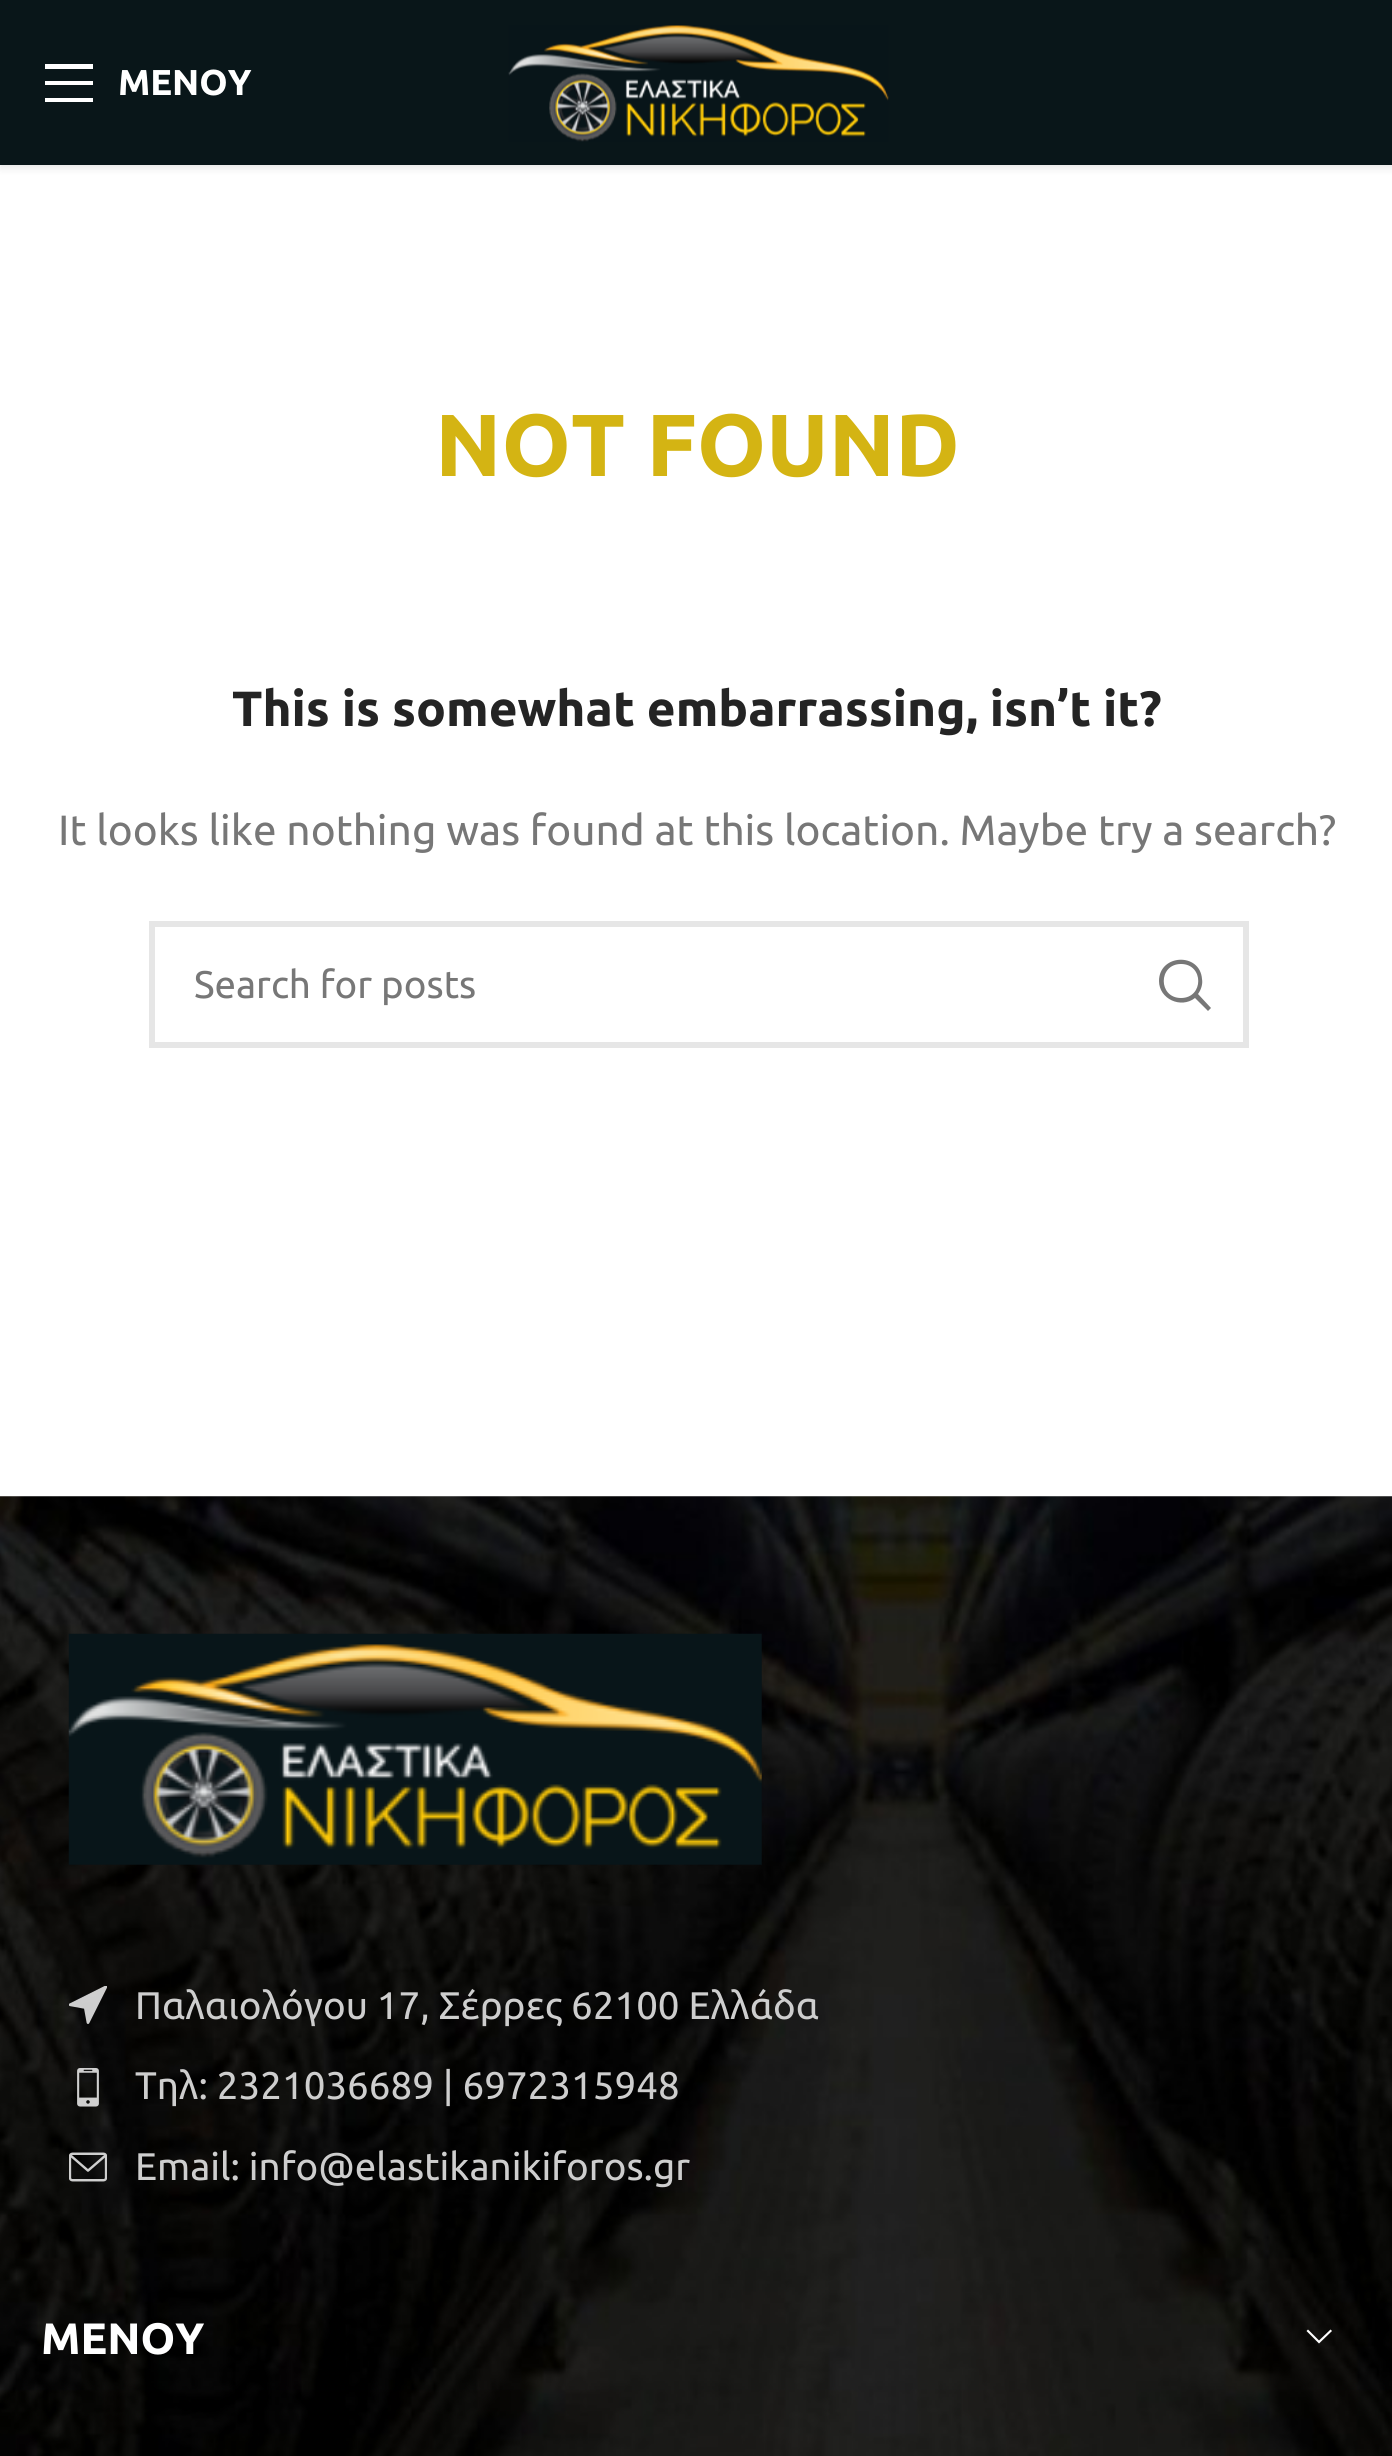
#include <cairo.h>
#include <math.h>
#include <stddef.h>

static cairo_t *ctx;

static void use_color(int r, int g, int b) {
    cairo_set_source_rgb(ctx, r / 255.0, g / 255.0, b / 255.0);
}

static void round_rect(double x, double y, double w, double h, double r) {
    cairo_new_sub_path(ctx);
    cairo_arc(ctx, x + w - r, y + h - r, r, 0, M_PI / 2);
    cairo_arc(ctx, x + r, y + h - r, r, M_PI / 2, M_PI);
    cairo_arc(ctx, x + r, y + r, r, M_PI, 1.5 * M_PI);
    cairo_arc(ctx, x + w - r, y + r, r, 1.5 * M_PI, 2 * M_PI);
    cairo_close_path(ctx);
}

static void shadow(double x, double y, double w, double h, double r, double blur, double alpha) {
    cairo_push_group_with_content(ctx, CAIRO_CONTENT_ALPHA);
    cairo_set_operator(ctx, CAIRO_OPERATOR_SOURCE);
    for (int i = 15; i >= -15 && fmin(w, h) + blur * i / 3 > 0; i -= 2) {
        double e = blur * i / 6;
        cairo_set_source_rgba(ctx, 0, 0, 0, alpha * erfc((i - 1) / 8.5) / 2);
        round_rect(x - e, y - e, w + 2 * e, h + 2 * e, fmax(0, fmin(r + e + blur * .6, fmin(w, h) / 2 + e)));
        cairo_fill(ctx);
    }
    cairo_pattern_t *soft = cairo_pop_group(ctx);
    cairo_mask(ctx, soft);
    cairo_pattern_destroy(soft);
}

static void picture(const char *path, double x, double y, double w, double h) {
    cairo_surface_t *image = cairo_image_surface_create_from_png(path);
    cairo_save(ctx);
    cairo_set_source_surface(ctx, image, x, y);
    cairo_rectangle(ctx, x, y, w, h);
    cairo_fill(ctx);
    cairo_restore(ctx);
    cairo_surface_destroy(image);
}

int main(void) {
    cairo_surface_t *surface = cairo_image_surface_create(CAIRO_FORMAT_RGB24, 1392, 2456);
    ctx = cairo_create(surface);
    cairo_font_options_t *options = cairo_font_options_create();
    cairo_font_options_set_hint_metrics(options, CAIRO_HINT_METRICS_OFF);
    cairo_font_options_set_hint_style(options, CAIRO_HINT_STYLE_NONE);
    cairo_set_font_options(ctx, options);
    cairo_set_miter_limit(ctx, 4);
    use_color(255, 255, 255);
    cairo_paint(ctx);
    use_color(0, 0, 0);
    shadow(0, 3, 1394, 165, 0, 4, 0.1);
    use_color(9, 22, 25);
    cairo_rectangle(ctx, 0, 0, 1392, 165);
    cairo_fill(ctx);
    use_color(255, 255, 255);
    cairo_new_path(ctx);
    cairo_move_to(ctx, 45, 69);
    cairo_line_to(ctx, 93, 69);
    cairo_line_to(ctx, 93, 64);
    cairo_line_to(ctx, 45, 64);
    cairo_close_path(ctx);
    cairo_move_to(ctx, 45, 85);
    cairo_line_to(ctx, 93, 85);
    cairo_line_to(ctx, 93, 81);
    cairo_line_to(ctx, 45, 81);
    cairo_close_path(ctx);
    cairo_move_to(ctx, 45, 102);
    cairo_line_to(ctx, 93, 102);
    cairo_line_to(ctx, 93, 98);
    cairo_line_to(ctx, 45, 98);
    cairo_close_path(ctx);
    cairo_fill(ctx);
    cairo_select_font_face(ctx, "Ubuntu", CAIRO_FONT_SLANT_NORMAL, CAIRO_FONT_WEIGHT_BOLD);
    cairo_set_font_size(ctx, 36);
    cairo_move_to(ctx, 118, 95);
    cairo_show_text(ctx, "ΜΕΝΟΥ");
    picture("img1.png", 508, 25, 381, 117);
    cairo_set_font_size(ctx, 88);
    use_color(212, 180, 19);
    cairo_move_to(ctx, 435, 476);
    cairo_show_text(ctx, "NOT FOUND");
    cairo_set_font_size(ctx, 49.5);
    use_color(36, 36, 36);
    cairo_move_to(ctx, 232, 726);
    cairo_show_text(ctx, "This is somewhat embarrassing, isn’t it?");
    cairo_select_font_face(ctx, "Ubuntu", CAIRO_FONT_SLANT_NORMAL, CAIRO_FONT_WEIGHT_NORMAL);
    cairo_set_font_size(ctx, 42.35);
    use_color(119, 119, 119);
    cairo_move_to(ctx, 58, 845);
    cairo_show_text(ctx, "It looks like nothing was found at this location. Maybe try a search?");
    cairo_rectangle(ctx, 152, 924, 1094, 121);
    use_color(230, 230, 230);
    cairo_set_line_width(ctx, 6);
    cairo_stroke(ctx);
    cairo_set_font_size(ctx, 38.5);
    use_color(119, 119, 119);
    cairo_move_to(ctx, 194, 998);
    cairo_show_text(ctx, "Search for posts");
    cairo_new_path(ctx);
    cairo_move_to(ctx, 1159, 981);
    cairo_curve_to(ctx, 1159, 999, 1181, 1009, 1195, 998);
    cairo_line_to(ctx, 1208, 1011);
    cairo_line_to(ctx, 1211, 1008);
    cairo_line_to(ctx, 1198, 994);
    cairo_curve_to(ctx, 1201, 990, 1203, 984, 1202, 979);
    cairo_curve_to(ctx, 1200, 952, 1159, 954, 1159, 981);
    cairo_close_path(ctx);
    cairo_move_to(ctx, 1181, 998);
    cairo_curve_to(ctx, 1158, 998, 1158, 964, 1181, 964);
    cairo_curve_to(ctx, 1204, 964, 1204, 998, 1181, 998);
    cairo_close_path(ctx);
    cairo_fill(ctx);
    picture("img2.png", 0, 1496, 1392, 960);
    picture("img3.png", 68, 1633, 694, 232);
    picture("img4.png", 69, 1986, 38, 38);
    use_color(206, 206, 206);
    cairo_move_to(ctx, 135, 2019);
    cairo_show_text(ctx, "Παλαιολόγου 17, Σέρρες 62100 Ελλάδα");
    picture("img5.png", 77, 2068, 22, 39);
    cairo_move_to(ctx, 135, 2099);
    cairo_show_text(ctx, "Τηλ: 2321036689 | 6972315948");
    picture("img6.png", 69, 2152, 38, 30);
    cairo_move_to(ctx, 135, 2180);
    cairo_show_text(ctx, "Email: info@elastikanikiforos.gr");
    cairo_select_font_face(ctx, "Ubuntu", CAIRO_FONT_SLANT_NORMAL, CAIRO_FONT_WEIGHT_BOLD);
    cairo_set_font_size(ctx, 44);
    use_color(255, 255, 255);
    cairo_move_to(ctx, 41, 2354);
    cairo_show_text(ctx, "MENOY");
    cairo_new_path(ctx);
    cairo_move_to(ctx, 1330.5, 2329.5);
    cairo_line_to(ctx, 1319, 2340.5);
    cairo_line_to(ctx, 1308, 2329.5);
    cairo_line_to(ctx, 1306.5, 2331);
    cairo_line_to(ctx, 1319, 2343.5);
    cairo_line_to(ctx, 1332, 2331);
    cairo_close_path(ctx);
    cairo_fill(ctx);
    cairo_surface_write_to_png(surface, "result.png");
    cairo_font_options_destroy(options);
    cairo_destroy(ctx);
    cairo_surface_destroy(surface);
    return 0;
}
